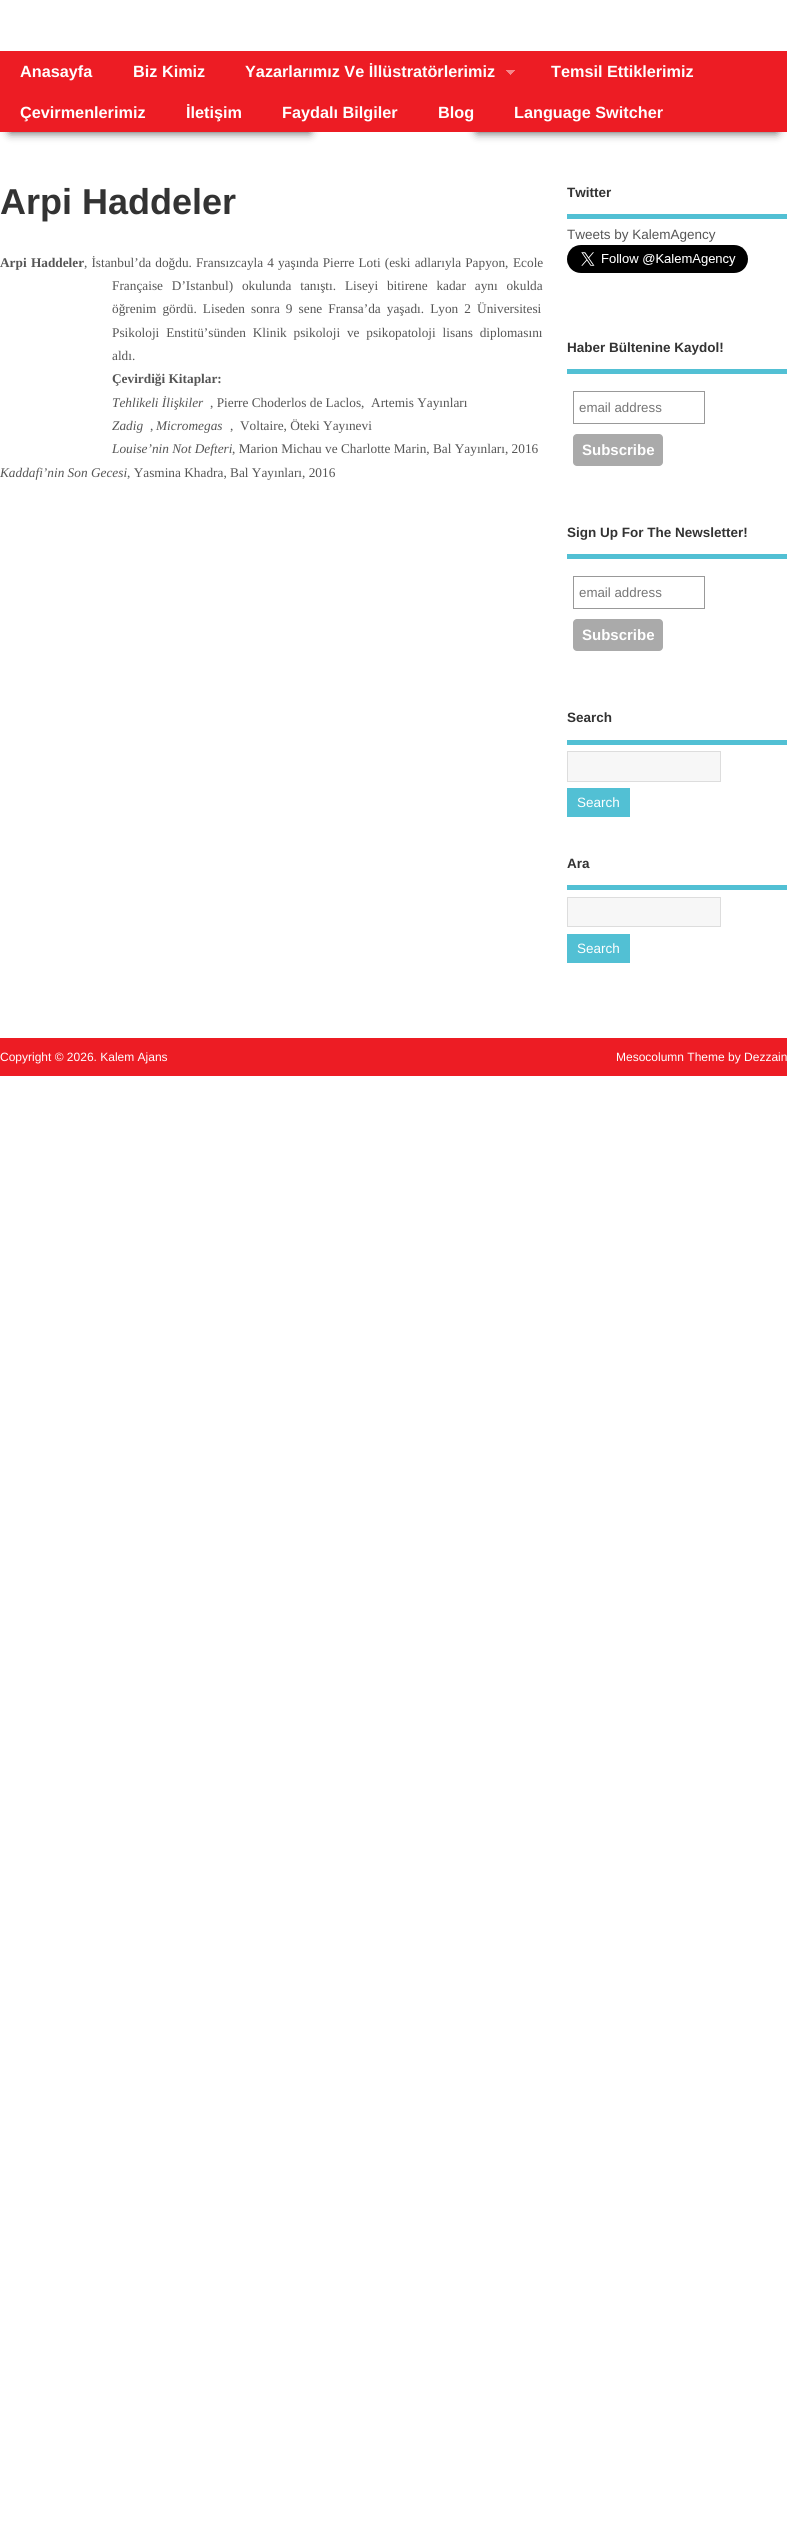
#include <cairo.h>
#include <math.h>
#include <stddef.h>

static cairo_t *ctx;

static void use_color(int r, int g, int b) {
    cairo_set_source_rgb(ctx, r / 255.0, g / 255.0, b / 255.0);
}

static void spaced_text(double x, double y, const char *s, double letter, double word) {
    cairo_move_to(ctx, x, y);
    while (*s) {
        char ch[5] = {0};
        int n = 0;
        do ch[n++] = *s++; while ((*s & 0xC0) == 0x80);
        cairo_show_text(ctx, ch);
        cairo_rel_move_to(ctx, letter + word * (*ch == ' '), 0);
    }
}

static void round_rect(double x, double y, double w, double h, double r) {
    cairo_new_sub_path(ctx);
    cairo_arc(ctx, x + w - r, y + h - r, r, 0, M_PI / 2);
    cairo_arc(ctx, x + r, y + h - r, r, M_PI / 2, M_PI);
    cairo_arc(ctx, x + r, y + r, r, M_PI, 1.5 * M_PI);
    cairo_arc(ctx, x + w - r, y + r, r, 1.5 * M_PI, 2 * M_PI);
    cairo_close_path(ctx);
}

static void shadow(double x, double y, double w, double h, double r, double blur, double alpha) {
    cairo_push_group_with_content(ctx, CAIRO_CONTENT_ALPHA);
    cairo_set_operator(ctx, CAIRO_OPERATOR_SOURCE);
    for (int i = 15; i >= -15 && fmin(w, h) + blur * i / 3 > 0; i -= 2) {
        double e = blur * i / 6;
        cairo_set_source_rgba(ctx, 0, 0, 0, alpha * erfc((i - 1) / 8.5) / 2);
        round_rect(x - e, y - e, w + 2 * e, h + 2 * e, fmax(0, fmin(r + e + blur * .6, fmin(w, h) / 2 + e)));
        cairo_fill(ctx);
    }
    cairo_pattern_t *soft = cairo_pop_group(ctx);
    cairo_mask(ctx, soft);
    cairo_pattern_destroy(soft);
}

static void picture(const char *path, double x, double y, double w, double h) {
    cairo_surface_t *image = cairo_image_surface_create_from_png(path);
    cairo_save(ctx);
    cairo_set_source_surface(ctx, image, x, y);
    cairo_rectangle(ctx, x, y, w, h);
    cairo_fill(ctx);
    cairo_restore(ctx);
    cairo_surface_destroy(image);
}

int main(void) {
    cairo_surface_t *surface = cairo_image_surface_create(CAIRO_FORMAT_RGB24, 787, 2547);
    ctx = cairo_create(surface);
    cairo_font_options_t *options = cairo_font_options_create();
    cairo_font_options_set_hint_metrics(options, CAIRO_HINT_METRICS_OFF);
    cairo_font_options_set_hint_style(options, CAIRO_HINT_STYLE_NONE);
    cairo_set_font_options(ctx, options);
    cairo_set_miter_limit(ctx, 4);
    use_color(255, 255, 255);
    cairo_paint(ctx);
    use_color(0, 0, 0);
    shadow(10, 116, 300, 16, 0, 5, 0.75);
    shadow(477, 116, 300, 16, 0, 5, 0.75);
    use_color(237, 28, 36);
    cairo_rectangle(ctx, 0, 51, 787, 81);
    cairo_fill(ctx);
    cairo_select_font_face(ctx, "Liberation Sans", CAIRO_FONT_SLANT_NORMAL, CAIRO_FONT_WEIGHT_BOLD);
    cairo_set_font_size(ctx, 16.25);
    use_color(255, 255, 255);
    cairo_move_to(ctx, 20, 77);
    cairo_show_text(ctx, "Anasayfa");
    cairo_move_to(ctx, 133, 77);
    cairo_show_text(ctx, "Biz Kimiz");
    cairo_move_to(ctx, 245, 77);
    cairo_show_text(ctx, "Yazarlarımız Ve İllüstratörlerimiz");
    picture("img1.png", 506, 70, 9, 5);
    cairo_move_to(ctx, 551, 77);
    cairo_show_text(ctx, "Temsil Ettiklerimiz");
    cairo_move_to(ctx, 20, 118);
    cairo_show_text(ctx, "Çevirmenlerimiz");
    cairo_move_to(ctx, 186, 118);
    cairo_show_text(ctx, "İletişim");
    cairo_move_to(ctx, 282, 118);
    cairo_show_text(ctx, "Faydalı Bilgiler");
    cairo_move_to(ctx, 438, 118);
    cairo_show_text(ctx, "Blog");
    cairo_move_to(ctx, 514, 118);
    cairo_show_text(ctx, "Language Switcher");
    cairo_set_font_size(ctx, 36);
    use_color(51, 51, 51);
    cairo_move_to(ctx, 0, 214);
    cairo_show_text(ctx, "Arpi Haddeler");
    cairo_select_font_face(ctx, "Liberation Serif", CAIRO_FONT_SLANT_NORMAL, CAIRO_FONT_WEIGHT_BOLD);
    cairo_set_font_size(ctx, 13.3);
    use_color(85, 85, 85);
    spaced_text(0, 267, "Arpi Haddeler", 0, 1);
    cairo_select_font_face(ctx, "Liberation Serif", CAIRO_FONT_SLANT_NORMAL, CAIRO_FONT_WEIGHT_NORMAL);
    spaced_text(84, 267, ", İstanbul’da doğdu. Fransızcayla 4 yaşında Pierre Loti (eski adlarıyla Papyon,", 0, 0.75);
    cairo_move_to(ctx, 513, 267);
    cairo_show_text(ctx, "Ecole");
    spaced_text(112, 290, "Française D’Istanbul) okulunda tanıştı. Liseyi bitirene kadar aynı okulda", 0, 5.5);
    spaced_text(112, 313, "öğrenim gördü. Liseden sonra 9 sene Fransa’da yaşadı. Lyon 2 Üniversitesi", 0, 2.75);
    spaced_text(112, 337, "Psikoloji Enstitü’sünden Klinik psikoloji ve psikopatoloji lisans diplomasını", 0, 3.5);
    cairo_move_to(ctx, 112, 360);
    cairo_show_text(ctx, "aldı.");
    cairo_select_font_face(ctx, "Liberation Serif", CAIRO_FONT_SLANT_NORMAL, CAIRO_FONT_WEIGHT_BOLD);
    cairo_move_to(ctx, 112, 383);
    cairo_show_text(ctx, "Çevirdiği Kitaplar:");
    cairo_select_font_face(ctx, "Liberation Serif", CAIRO_FONT_SLANT_ITALIC, CAIRO_FONT_WEIGHT_NORMAL);
    cairo_move_to(ctx, 112, 407);
    cairo_show_text(ctx, "Tehlikeli İlişkiler");
    cairo_select_font_face(ctx, "Liberation Serif", CAIRO_FONT_SLANT_NORMAL, CAIRO_FONT_WEIGHT_NORMAL);
    cairo_move_to(ctx, 210, 407);
    cairo_show_text(ctx, ", Pierre Choderlos de Laclos,  Artemis Yayınları");
    cairo_select_font_face(ctx, "Liberation Serif", CAIRO_FONT_SLANT_ITALIC, CAIRO_FONT_WEIGHT_NORMAL);
    cairo_move_to(ctx, 112, 430);
    cairo_show_text(ctx, "Zadig");
    cairo_select_font_face(ctx, "Liberation Serif", CAIRO_FONT_SLANT_NORMAL, CAIRO_FONT_WEIGHT_NORMAL);
    cairo_move_to(ctx, 150, 430);
    cairo_show_text(ctx, ",");
    cairo_select_font_face(ctx, "Liberation Serif", CAIRO_FONT_SLANT_ITALIC, CAIRO_FONT_WEIGHT_NORMAL);
    cairo_move_to(ctx, 156, 430);
    cairo_show_text(ctx, "Micromegas");
    cairo_select_font_face(ctx, "Liberation Serif", CAIRO_FONT_SLANT_NORMAL, CAIRO_FONT_WEIGHT_NORMAL);
    cairo_move_to(ctx, 230, 430);
    cairo_show_text(ctx, ",  Voltaire, Öteki Yayınevi");
    cairo_select_font_face(ctx, "Liberation Serif", CAIRO_FONT_SLANT_ITALIC, CAIRO_FONT_WEIGHT_NORMAL);
    cairo_move_to(ctx, 112, 453);
    cairo_show_text(ctx, "Louise’nin Not Defteri");
    cairo_select_font_face(ctx, "Liberation Serif", CAIRO_FONT_SLANT_NORMAL, CAIRO_FONT_WEIGHT_NORMAL);
    cairo_move_to(ctx, 232, 453);
    cairo_show_text(ctx, ", Marion Michau ve Charlotte Marin, Bal Yayınları, 2016");
    cairo_select_font_face(ctx, "Liberation Serif", CAIRO_FONT_SLANT_ITALIC, CAIRO_FONT_WEIGHT_NORMAL);
    cairo_move_to(ctx, 0, 477);
    cairo_show_text(ctx, "Kaddafi’nin Son Gecesi");
    cairo_select_font_face(ctx, "Liberation Serif", CAIRO_FONT_SLANT_NORMAL, CAIRO_FONT_WEIGHT_NORMAL);
    cairo_move_to(ctx, 127, 477);
    cairo_show_text(ctx, ", Yasmina Khadra, Bal Yayınları, 2016");
    use_color(82, 192, 212);
    cairo_rectangle(ctx, 567, 214, 220, 5);
    cairo_fill(ctx);
    cairo_select_font_face(ctx, "Liberation Sans", CAIRO_FONT_SLANT_NORMAL, CAIRO_FONT_WEIGHT_BOLD);
    cairo_set_font_size(ctx, 13.5);
    use_color(51, 51, 51);
    cairo_move_to(ctx, 567, 197);
    cairo_show_text(ctx, "Twitter");
    cairo_select_font_face(ctx, "Liberation Sans", CAIRO_FONT_SLANT_NORMAL, CAIRO_FONT_WEIGHT_NORMAL);
    use_color(85, 85, 85);
    cairo_move_to(ctx, 567, 239);
    cairo_show_text(ctx, "Tweets by KalemAgency");
    picture("img2.png", 567, 245, 181, 28);
    use_color(82, 192, 212);
    cairo_rectangle(ctx, 567, 369, 220, 5);
    cairo_fill(ctx);
    cairo_select_font_face(ctx, "Liberation Sans", CAIRO_FONT_SLANT_NORMAL, CAIRO_FONT_WEIGHT_BOLD);
    use_color(51, 51, 51);
    cairo_move_to(ctx, 567, 352);
    cairo_show_text(ctx, "Haber Bültenine Kaydol!");
    cairo_rectangle(ctx, 573.5, 391.5, 131, 32);
    use_color(153, 153, 153);
    cairo_set_line_width(ctx, 1);
    cairo_stroke(ctx);
    cairo_select_font_face(ctx, "Liberation Sans", CAIRO_FONT_SLANT_NORMAL, CAIRO_FONT_WEIGHT_NORMAL);
    cairo_set_font_size(ctx, 13.3);
    use_color(117, 117, 117);
    cairo_move_to(ctx, 579, 412);
    cairo_show_text(ctx, "email address");
    use_color(170, 170, 170);
    round_rect(573, 434, 90, 32, 4);
    cairo_fill(ctx);
    cairo_select_font_face(ctx, "Liberation Sans", CAIRO_FONT_SLANT_NORMAL, CAIRO_FONT_WEIGHT_BOLD);
    cairo_set_font_size(ctx, 15);
    use_color(255, 255, 255);
    cairo_move_to(ctx, 582, 455);
    cairo_show_text(ctx, "Subscribe");
    use_color(82, 192, 212);
    cairo_rectangle(ctx, 567, 554, 220, 5);
    cairo_fill(ctx);
    cairo_set_font_size(ctx, 13.5);
    use_color(51, 51, 51);
    cairo_move_to(ctx, 567, 537);
    cairo_show_text(ctx, "Sign Up For The Newsletter!");
    cairo_rectangle(ctx, 573.5, 576.5, 131, 32);
    use_color(153, 153, 153);
    cairo_stroke(ctx);
    cairo_select_font_face(ctx, "Liberation Sans", CAIRO_FONT_SLANT_NORMAL, CAIRO_FONT_WEIGHT_NORMAL);
    cairo_set_font_size(ctx, 13.3);
    use_color(117, 117, 117);
    cairo_move_to(ctx, 579, 597);
    cairo_show_text(ctx, "email address");
    use_color(170, 170, 170);
    round_rect(573, 619, 90, 32, 4);
    cairo_fill(ctx);
    cairo_select_font_face(ctx, "Liberation Sans", CAIRO_FONT_SLANT_NORMAL, CAIRO_FONT_WEIGHT_BOLD);
    cairo_set_font_size(ctx, 15);
    use_color(255, 255, 255);
    cairo_move_to(ctx, 582, 640);
    cairo_show_text(ctx, "Subscribe");
    use_color(82, 192, 212);
    cairo_rectangle(ctx, 567, 740, 220, 5);
    cairo_fill(ctx);
    cairo_set_font_size(ctx, 13.5);
    use_color(51, 51, 51);
    cairo_move_to(ctx, 567, 722);
    cairo_show_text(ctx, "Search");
    use_color(247, 247, 247);
    cairo_rectangle(ctx, 567.5, 751.5, 153, 30);
    cairo_fill_preserve(ctx);
    use_color(221, 221, 221);
    cairo_stroke(ctx);
    use_color(82, 192, 212);
    cairo_rectangle(ctx, 567, 788, 63, 29);
    cairo_fill(ctx);
    cairo_select_font_face(ctx, "Liberation Sans", CAIRO_FONT_SLANT_NORMAL, CAIRO_FONT_WEIGHT_NORMAL);
    use_color(255, 255, 255);
    cairo_move_to(ctx, 577, 807);
    cairo_show_text(ctx, "Search");
    use_color(82, 192, 212);
    cairo_rectangle(ctx, 567, 885, 220, 5);
    cairo_fill(ctx);
    cairo_select_font_face(ctx, "Liberation Sans", CAIRO_FONT_SLANT_NORMAL, CAIRO_FONT_WEIGHT_BOLD);
    use_color(51, 51, 51);
    cairo_move_to(ctx, 567, 868);
    cairo_show_text(ctx, "Ara");
    use_color(247, 247, 247);
    cairo_rectangle(ctx, 567.5, 897.5, 153, 29);
    cairo_fill_preserve(ctx);
    use_color(221, 221, 221);
    cairo_stroke(ctx);
    use_color(82, 192, 212);
    cairo_rectangle(ctx, 567, 934, 63, 29);
    cairo_fill(ctx);
    cairo_select_font_face(ctx, "Liberation Sans", CAIRO_FONT_SLANT_NORMAL, CAIRO_FONT_WEIGHT_NORMAL);
    use_color(255, 255, 255);
    cairo_move_to(ctx, 577, 953);
    cairo_show_text(ctx, "Search");
    use_color(237, 28, 36);
    cairo_rectangle(ctx, 0, 1038, 787, 38);
    cairo_fill(ctx);
    cairo_set_font_size(ctx, 12);
    use_color(255, 255, 255);
    cairo_move_to(ctx, 0, 1061);
    cairo_show_text(ctx, "Copyright © 2026. Kalem Ajans");
    cairo_move_to(ctx, 616, 1061);
    cairo_show_text(ctx, "Mesocolumn Theme by Dezzain");
    cairo_surface_write_to_png(surface, "result.png");
    cairo_font_options_destroy(options);
    cairo_destroy(ctx);
    cairo_surface_destroy(surface);
    return 0;
}
